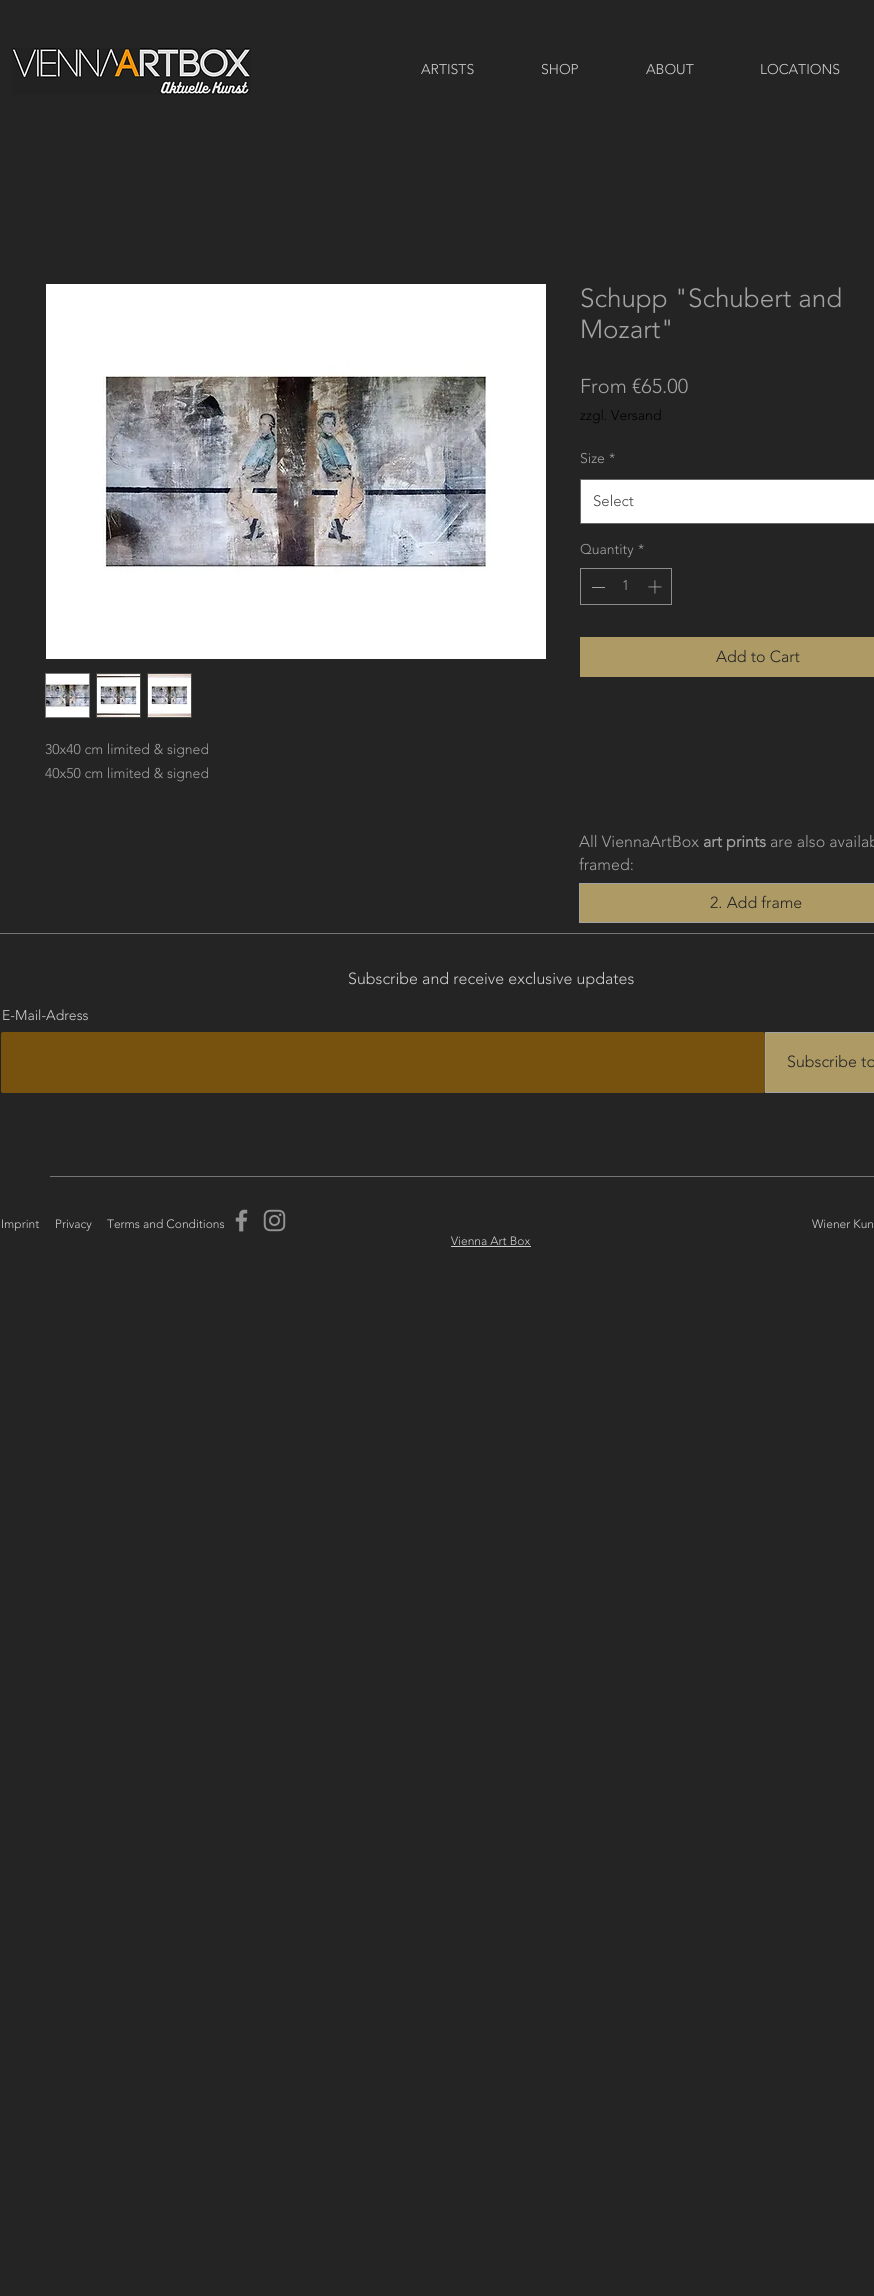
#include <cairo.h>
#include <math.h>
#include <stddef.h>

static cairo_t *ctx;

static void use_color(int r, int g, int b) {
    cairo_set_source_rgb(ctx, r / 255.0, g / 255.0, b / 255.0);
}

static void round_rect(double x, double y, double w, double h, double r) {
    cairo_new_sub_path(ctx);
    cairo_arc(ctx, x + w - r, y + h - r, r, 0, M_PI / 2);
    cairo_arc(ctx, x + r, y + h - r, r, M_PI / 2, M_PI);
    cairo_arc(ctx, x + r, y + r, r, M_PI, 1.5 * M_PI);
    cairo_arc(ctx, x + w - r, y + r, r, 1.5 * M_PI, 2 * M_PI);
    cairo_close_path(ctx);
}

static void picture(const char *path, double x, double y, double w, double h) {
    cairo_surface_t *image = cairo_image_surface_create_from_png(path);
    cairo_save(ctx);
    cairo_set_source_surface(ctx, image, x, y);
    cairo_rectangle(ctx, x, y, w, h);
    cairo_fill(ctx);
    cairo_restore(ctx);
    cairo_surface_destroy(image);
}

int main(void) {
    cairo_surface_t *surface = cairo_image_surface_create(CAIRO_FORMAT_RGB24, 874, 2296);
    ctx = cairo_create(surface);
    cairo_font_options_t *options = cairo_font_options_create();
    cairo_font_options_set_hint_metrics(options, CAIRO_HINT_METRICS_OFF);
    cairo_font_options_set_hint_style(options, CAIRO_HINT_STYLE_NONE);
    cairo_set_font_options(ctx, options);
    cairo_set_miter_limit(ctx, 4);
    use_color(36, 36, 36);
    cairo_paint(ctx);
    picture("img1.png", 12, 48, 239, 47);
    cairo_select_font_face(ctx, "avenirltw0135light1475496 Light", CAIRO_FONT_SLANT_NORMAL, CAIRO_FONT_WEIGHT_NORMAL);
    cairo_set_font_size(ctx, 14);
    use_color(209, 209, 209);
    cairo_move_to(ctx, 421, 74);
    cairo_show_text(ctx, "ARTISTS");
    cairo_move_to(ctx, 541, 74);
    cairo_show_text(ctx, "SHOP");
    cairo_move_to(ctx, 646, 74);
    cairo_show_text(ctx, "ABOUT");
    cairo_move_to(ctx, 760, 74);
    cairo_show_text(ctx, "LOCATIONS");
    cairo_set_font_size(ctx, 26);
    use_color(163, 163, 163);
    cairo_move_to(ctx, 580, 307);
    cairo_show_text(ctx, "Schupp \"Schubert and");
    cairo_move_to(ctx, 580, 338);
    cairo_show_text(ctx, "Mozart\"");
    cairo_set_font_size(ctx, 20);
    cairo_move_to(ctx, 580, 393);
    cairo_show_text(ctx, "From €65.00");
    cairo_set_font_size(ctx, 14);
    use_color(0, 0, 0);
    cairo_move_to(ctx, 580, 420);
    cairo_show_text(ctx, "zzgl. Versand");
    use_color(163, 163, 163);
    cairo_move_to(ctx, 580, 463);
    cairo_show_text(ctx, "Size");
    cairo_move_to(ctx, 609, 463);
    cairo_show_text(ctx, "*");
    use_color(255, 255, 255);
    cairo_rectangle(ctx, 580.5, 479.5, 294, 44);
    cairo_fill_preserve(ctx);
    use_color(102, 102, 102);
    cairo_set_line_width(ctx, 1);
    cairo_stroke(ctx);
    cairo_set_font_size(ctx, 15);
    use_color(68, 68, 68);
    cairo_move_to(ctx, 593, 506);
    cairo_show_text(ctx, "Select");
    cairo_set_font_size(ctx, 14);
    use_color(163, 163, 163);
    cairo_move_to(ctx, 580, 554);
    cairo_show_text(ctx, "Quantity");
    cairo_move_to(ctx, 638, 554);
    cairo_show_text(ctx, "*");
    cairo_rectangle(ctx, 580.5, 568.5, 91, 36);
    use_color(140, 140, 140);
    cairo_stroke(ctx);
    use_color(163, 163, 163);
    cairo_rectangle(ctx, 592, 587, 13, 1);
    cairo_fill(ctx);
    cairo_move_to(ctx, 622, 590);
    cairo_show_text(ctx, "1");
    picture("img2.png", 648, 580, 14, 14);
    use_color(174, 154, 100);
    cairo_rectangle(ctx, 580, 637, 294, 40);
    cairo_fill(ctx);
    cairo_set_font_size(ctx, 16);
    use_color(36, 36, 36);
    cairo_move_to(ctx, 716, 662);
    cairo_show_text(ctx, "Add to Cart");
    picture("img3.png", 46, 284, 500, 375);
    cairo_rectangle(ctx, 45.5, 673.5, 44, 44);
    use_color(117, 117, 117);
    cairo_stroke(ctx);
    picture("img4.png", 46, 674, 43, 43);
    use_color(71, 71, 71);
    cairo_rectangle(ctx, 96, 673, 45, 45);
    cairo_fill(ctx);
    picture("img5.png", 97, 674, 43, 43);
    cairo_rectangle(ctx, 147, 673, 45, 45);
    cairo_fill(ctx);
    picture("img6.png", 148, 674, 43, 43);
    cairo_set_font_size(ctx, 14);
    use_color(163, 163, 163);
    cairo_move_to(ctx, 45, 754);
    cairo_show_text(ctx, "30x40 cm limited & signed");
    cairo_move_to(ctx, 45, 778);
    cairo_show_text(ctx, "40x50 cm limited & signed");
    cairo_set_font_size(ctx, 16);
    cairo_move_to(ctx, 579, 847);
    cairo_show_text(ctx, "All ViennaArtBox");
    cairo_select_font_face(ctx, "avenirltw0135light1475496", CAIRO_FONT_SLANT_NORMAL, CAIRO_FONT_WEIGHT_BOLD);
    cairo_move_to(ctx, 703, 847);
    cairo_show_text(ctx, "art prints");
    cairo_select_font_face(ctx, "avenirltw0135light1475496 Light", CAIRO_FONT_SLANT_NORMAL, CAIRO_FONT_WEIGHT_NORMAL);
    cairo_move_to(ctx, 770, 847);
    cairo_show_text(ctx, "are also availab");
    cairo_move_to(ctx, 579, 870);
    cairo_show_text(ctx, "framed:");
    use_color(174, 154, 100);
    cairo_rectangle(ctx, 579.5, 883.5, 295, 39);
    cairo_fill_preserve(ctx);
    use_color(163, 163, 163);
    cairo_stroke(ctx);
    use_color(36, 36, 36);
    cairo_move_to(ctx, 710, 908);
    cairo_show_text(ctx, "2. Add frame");
    use_color(117, 117, 117);
    cairo_rectangle(ctx, 0, 933, 874, 1);
    cairo_fill(ctx);
    use_color(209, 209, 209);
    cairo_move_to(ctx, 348, 984);
    cairo_show_text(ctx, "Subscribe and receive exclusive updates");
    cairo_set_font_size(ctx, 14);
    cairo_move_to(ctx, 2, 1020);
    cairo_show_text(ctx, "E-Mail-Adress");
    use_color(118, 82, 14);
    round_rect(1, 1032, 764, 61, 2);
    cairo_fill(ctx);
    use_color(174, 154, 100);
    cairo_rectangle(ctx, 765.5, 1032.5, 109, 60);
    cairo_fill_preserve(ctx);
    use_color(163, 163, 163);
    cairo_stroke(ctx);
    cairo_set_font_size(ctx, 16);
    use_color(36, 36, 36);
    cairo_move_to(ctx, 787, 1067);
    cairo_show_text(ctx, "Subscribe to");
    use_color(117, 117, 117);
    cairo_rectangle(ctx, 50, 1176, 824, 1);
    cairo_fill(ctx);
    cairo_set_font_size(ctx, 12);
    use_color(209, 209, 209);
    cairo_move_to(ctx, 1, 1228);
    cairo_show_text(ctx, "Imprint");
    cairo_move_to(ctx, 55, 1228);
    cairo_show_text(ctx, "Privacy");
    cairo_move_to(ctx, 107, 1228);
    cairo_show_text(ctx, "Terms and Conditions");
    picture("img7.png", 235, 1209, 13, 23);
    picture("img8.png", 263, 1209, 23, 23);
    cairo_move_to(ctx, 812, 1228);
    cairo_show_text(ctx, "Wiener Kun");
    cairo_move_to(ctx, 451, 1245);
    cairo_show_text(ctx, "Vienna Art Box");
    cairo_rectangle(ctx, 451, 1246, 80, 1);
    cairo_fill(ctx);
    cairo_surface_write_to_png(surface, "result.png");
    cairo_font_options_destroy(options);
    cairo_destroy(ctx);
    cairo_surface_destroy(surface);
    return 0;
}
